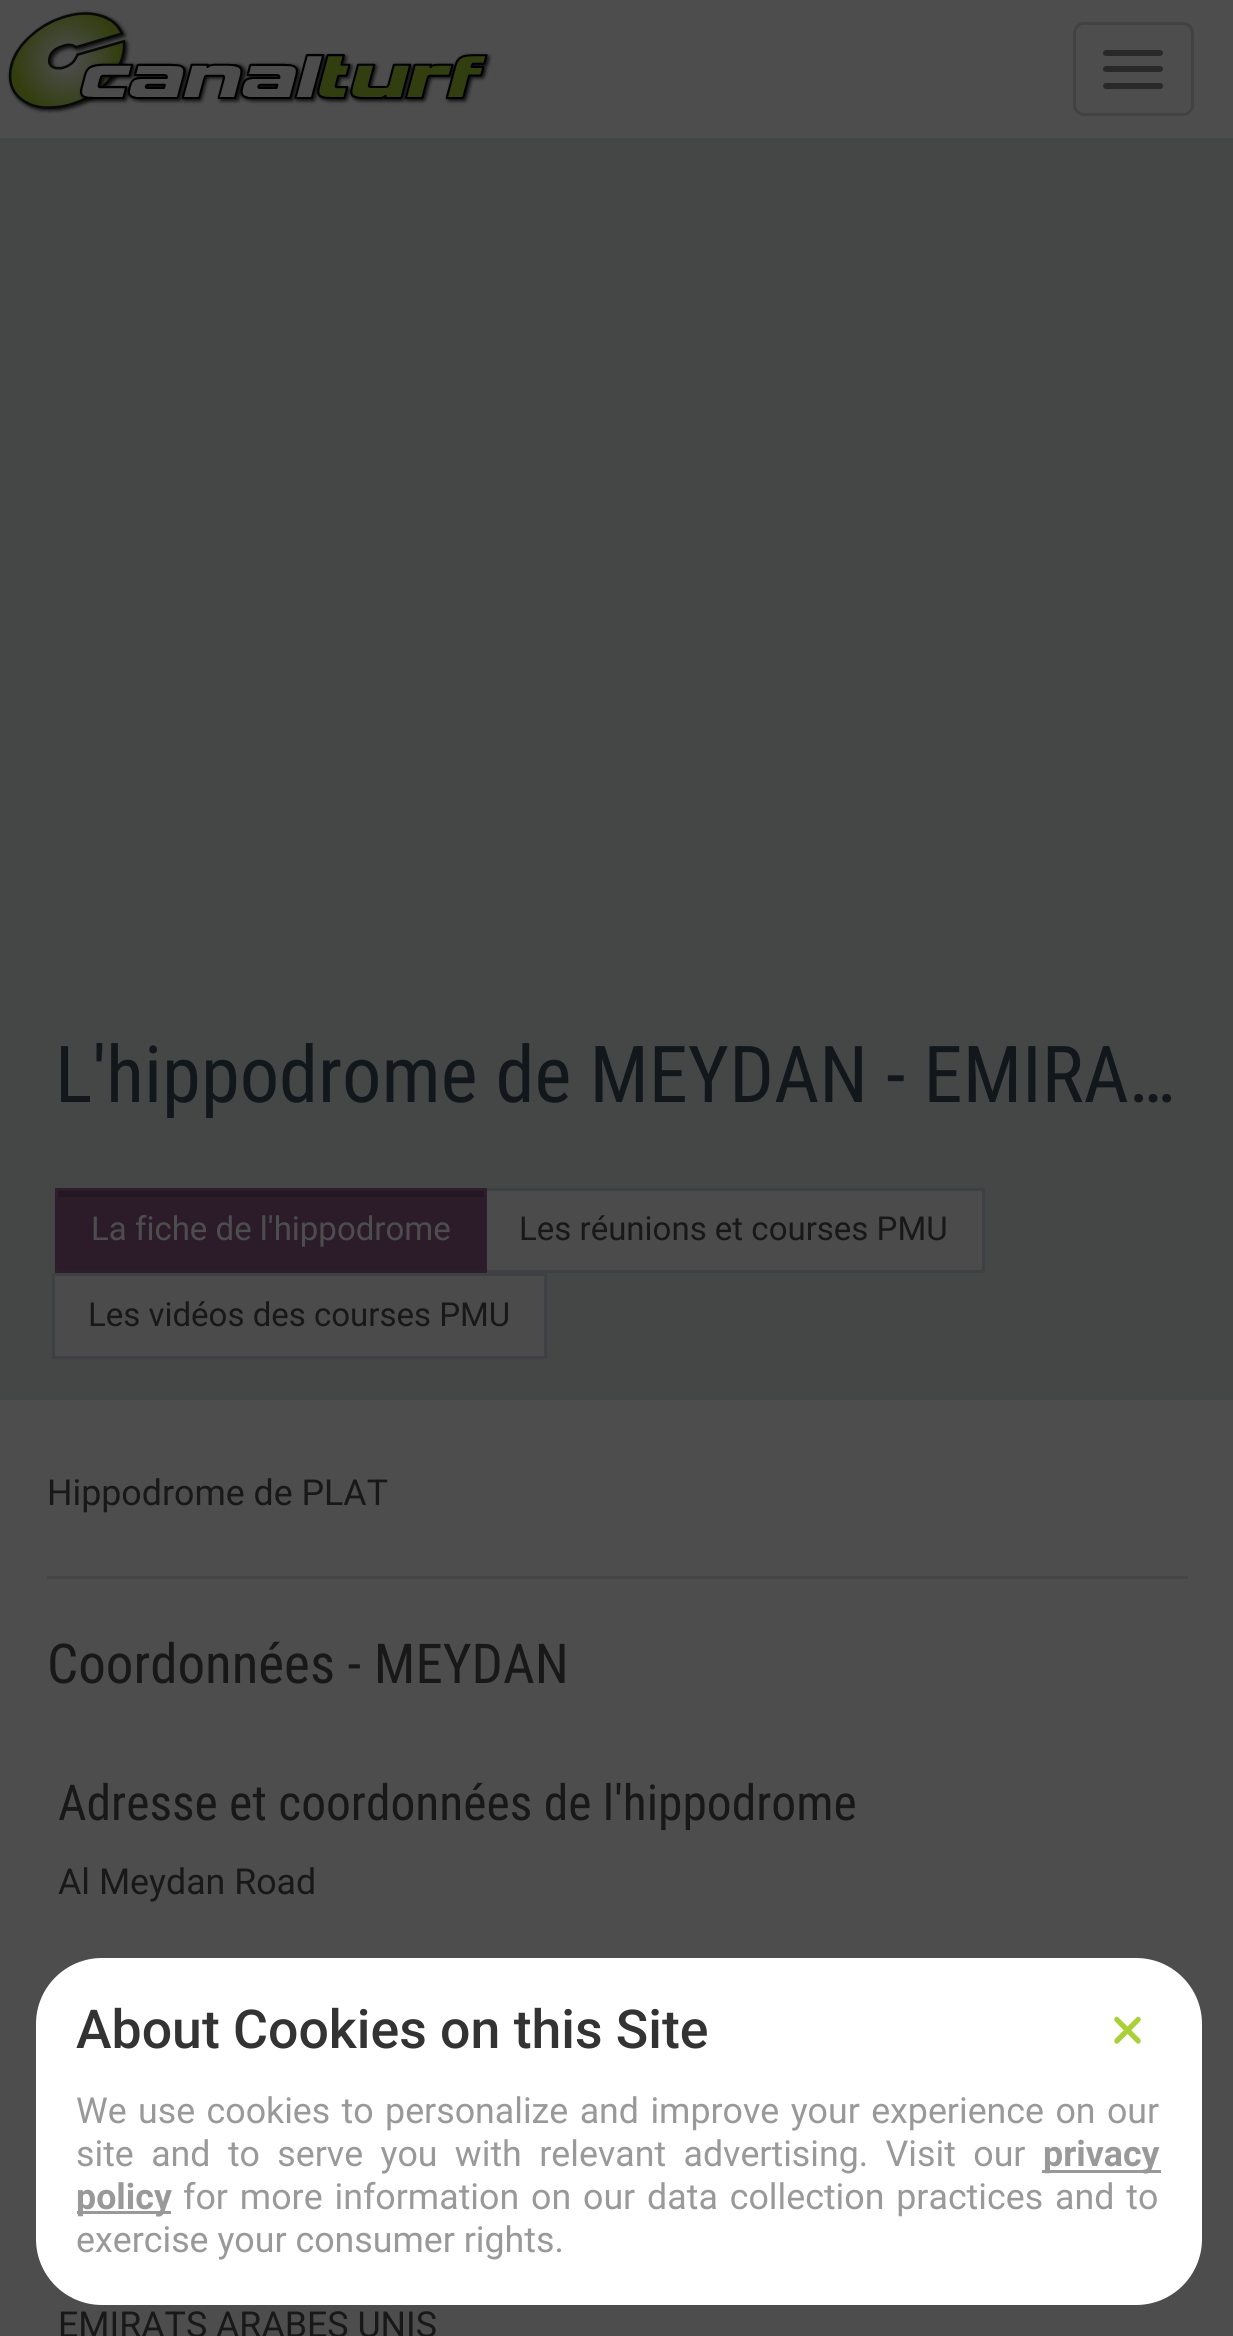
#include <cairo.h>
#include <math.h>
#include <stddef.h>

static cairo_t *ctx;

static void use_color(int r, int g, int b) {
    cairo_set_source_rgb(ctx, r / 255.0, g / 255.0, b / 255.0);
}

static void spaced_text(double x, double y, const char *s, double letter, double word) {
    cairo_move_to(ctx, x, y);
    while (*s) {
        char ch[5] = {0};
        int n = 0;
        do ch[n++] = *s++; while ((*s & 0xC0) == 0x80);
        cairo_show_text(ctx, ch);
        cairo_rel_move_to(ctx, letter + word * (*ch == ' '), 0);
    }
}

static void round_rect(double x, double y, double w, double h, double r) {
    cairo_new_sub_path(ctx);
    cairo_arc(ctx, x + w - r, y + h - r, r, 0, M_PI / 2);
    cairo_arc(ctx, x + r, y + h - r, r, M_PI / 2, M_PI);
    cairo_arc(ctx, x + r, y + r, r, M_PI, 1.5 * M_PI);
    cairo_arc(ctx, x + w - r, y + r, r, 1.5 * M_PI, 2 * M_PI);
    cairo_close_path(ctx);
}

static void picture(const char *path, double x, double y, double w, double h) {
    cairo_surface_t *image = cairo_image_surface_create_from_png(path);
    cairo_save(ctx);
    cairo_set_source_surface(ctx, image, x, y);
    cairo_rectangle(ctx, x, y, w, h);
    cairo_fill(ctx);
    cairo_restore(ctx);
    cairo_surface_destroy(image);
}

int main(void) {
    cairo_surface_t *surface = cairo_image_surface_create(CAIRO_FORMAT_RGB24, 1233, 2336);
    ctx = cairo_create(surface);
    cairo_font_options_t *options = cairo_font_options_create();
    cairo_font_options_set_hint_metrics(options, CAIRO_HINT_METRICS_OFF);
    cairo_font_options_set_hint_style(options, CAIRO_HINT_STYLE_NONE);
    cairo_set_font_options(ctx, options);
    cairo_set_miter_limit(ctx, 4);
    use_color(69, 71, 71);
    cairo_paint(ctx);
    use_color(77, 77, 77);
    cairo_rectangle(ctx, 0, 0, 1233, 138);
    cairo_fill(ctx);
    picture("img1.png", 7, 10, 486, 104);
    round_rect(1074.5, 23.5, 118, 91, 9.5);
    use_color(66, 66, 66);
    cairo_set_line_width(ctx, 3);
    cairo_stroke(ctx);
    use_color(41, 41, 41);
    round_rect(1103, 50, 60, 6, 3);
    cairo_fill(ctx);
    round_rect(1103, 66, 60, 6, 3);
    cairo_fill(ctx);
    round_rect(1103, 83, 60, 6, 3);
    cairo_fill(ctx);
    cairo_select_font_face(ctx, "Roboto Condensed", CAIRO_FONT_SLANT_NORMAL, CAIRO_FONT_WEIGHT_NORMAL);
    cairo_set_font_size(ctx, 78.6);
    use_color(18, 23, 28);
    cairo_move_to(ctx, 55, 1102);
    cairo_show_text(ctx, "L'hippodrome de MEYDAN - EMIRA…");
    use_color(44, 28, 42);
    cairo_rectangle(ctx, 58, 1197, 426, 73);
    cairo_fill(ctx);
    use_color(35, 23, 33);
    cairo_rectangle(ctx, 58, 1191, 426, 6);
    cairo_fill(ctx);
    use_color(75, 75, 75);
    cairo_rectangle(ctx, 485.5, 1189.5, 498, 82);
    cairo_fill_preserve(ctx);
    use_color(62, 64, 68);
    cairo_stroke(ctx);
    cairo_rectangle(ctx, 56.5, 1189.5, 429, 82);
    use_color(46, 29, 44);
    cairo_stroke(ctx);
    cairo_select_font_face(ctx, "Roboto", CAIRO_FONT_SLANT_NORMAL, CAIRO_FONT_WEIGHT_NORMAL);
    cairo_set_font_size(ctx, 33);
    use_color(77, 77, 77);
    cairo_move_to(ctx, 91, 1240);
    cairo_show_text(ctx, "La fiche de l'hippodrome");
    use_color(24, 24, 24);
    cairo_move_to(ctx, 519, 1240);
    cairo_show_text(ctx, "Les réunions et courses PMU");
    use_color(75, 75, 75);
    cairo_rectangle(ctx, 53.5, 1274.5, 492, 83);
    cairo_fill_preserve(ctx);
    use_color(62, 64, 68);
    cairo_stroke(ctx);
    use_color(24, 24, 24);
    cairo_move_to(ctx, 88, 1326);
    cairo_show_text(ctx, "Les vidéos des courses PMU");
    use_color(77, 77, 77);
    cairo_rectangle(ctx, 0, 1400, 1233, 936);
    cairo_fill(ctx);
    cairo_set_font_size(ctx, 35.75);
    use_color(24, 24, 24);
    cairo_move_to(ctx, 47, 1505);
    cairo_show_text(ctx, "Hippodrome de PLAT");
    use_color(69, 69, 69);
    cairo_rectangle(ctx, 47, 1576, 1141, 3);
    cairo_fill(ctx);
    cairo_select_font_face(ctx, "Roboto Condensed", CAIRO_FONT_SLANT_NORMAL, CAIRO_FONT_WEIGHT_NORMAL);
    cairo_set_font_size(ctx, 55);
    use_color(24, 24, 24);
    cairo_move_to(ctx, 47, 1683);
    cairo_show_text(ctx, "Coordonnées - MEYDAN");
    cairo_set_font_size(ctx, 49.5);
    cairo_move_to(ctx, 58, 1820);
    cairo_show_text(ctx, "Adresse et coordonnées de l'hippodrome");
    cairo_select_font_face(ctx, "Roboto", CAIRO_FONT_SLANT_NORMAL, CAIRO_FONT_WEIGHT_NORMAL);
    cairo_set_font_size(ctx, 35.75);
    cairo_move_to(ctx, 58, 1894);
    cairo_show_text(ctx, "Al Meydan Road");
    cairo_move_to(ctx, 58, 2337);
    cairo_show_text(ctx, "EMIRATS ARABES UNIS");
    use_color(255, 255, 255);
    round_rect(36, 1958, 1166, 347, 66);
    cairo_fill(ctx);
    cairo_select_font_face(ctx, "Roboto Medium", CAIRO_FONT_SLANT_NORMAL, CAIRO_FONT_WEIGHT_NORMAL);
    cairo_set_font_size(ctx, 53.6);
    use_color(51, 51, 51);
    cairo_move_to(ctx, 76, 2048);
    cairo_show_text(ctx, "About Cookies on this Site");
    use_color(170, 208, 55);
    cairo_new_path(ctx);
    cairo_move_to(ctx, 1118.5, 2017.5);
    cairo_line_to(ctx, 1140, 2039);
    cairo_curve_to(ctx, 1141, 2040, 1141, 2041.5, 1140, 2043);
    cairo_curve_to(ctx, 1139, 2044, 1137.5, 2044, 1136.5, 2043);
    cairo_line_to(ctx, 1115, 2021.5);
    cairo_curve_to(ctx, 1114, 2020.5, 1114, 2018.5, 1115, 2017.5);
    cairo_curve_to(ctx, 1116, 2016.5, 1117.5, 2016.5, 1118.5, 2017.5);
    cairo_close_path(ctx);
    cairo_fill(ctx);
    cairo_new_path(ctx);
    cairo_move_to(ctx, 1115, 2039);
    cairo_line_to(ctx, 1136.5, 2017.5);
    cairo_curve_to(ctx, 1137.5, 2016.5, 1139, 2016.5, 1140, 2017.5);
    cairo_curve_to(ctx, 1141, 2018.5, 1141, 2020.5, 1140, 2021.5);
    cairo_line_to(ctx, 1118.5, 2043);
    cairo_curve_to(ctx, 1117.5, 2044, 1116, 2044, 1115, 2043);
    cairo_curve_to(ctx, 1114, 2041.5, 1114, 2040, 1115, 2039);
    cairo_close_path(ctx);
    cairo_fill(ctx);
    cairo_select_font_face(ctx, "Roboto", CAIRO_FONT_SLANT_NORMAL, CAIRO_FONT_WEIGHT_NORMAL);
    cairo_set_font_size(ctx, 35.75);
    use_color(153, 153, 153);
    spaced_text(76, 2123, "We use cookies to personalize and improve your experience on our", 0, 2.5);
    spaced_text(76, 2166, "site and to serve you with relevant advertising. Visit our", 0, 8.5);
    cairo_rectangle(ctx, 1042, 2170, 119, 3);
    cairo_fill(ctx);
    cairo_select_font_face(ctx, "Roboto", CAIRO_FONT_SLANT_NORMAL, CAIRO_FONT_WEIGHT_BOLD);
    cairo_move_to(ctx, 1043, 2166);
    cairo_show_text(ctx, "privacy");
    cairo_rectangle(ctx, 77, 2211, 94, 3);
    cairo_fill(ctx);
    cairo_move_to(ctx, 76, 2209);
    cairo_show_text(ctx, "policy");
    cairo_select_font_face(ctx, "Roboto", CAIRO_FONT_SLANT_NORMAL, CAIRO_FONT_WEIGHT_NORMAL);
    spaced_text(183, 2209, "for more information on our data collection practices and to", 0, 3);
    cairo_move_to(ctx, 76, 2252);
    cairo_show_text(ctx, "exercise your consumer rights.");
    cairo_surface_write_to_png(surface, "result.png");
    cairo_font_options_destroy(options);
    cairo_destroy(ctx);
    cairo_surface_destroy(surface);
    return 0;
}
